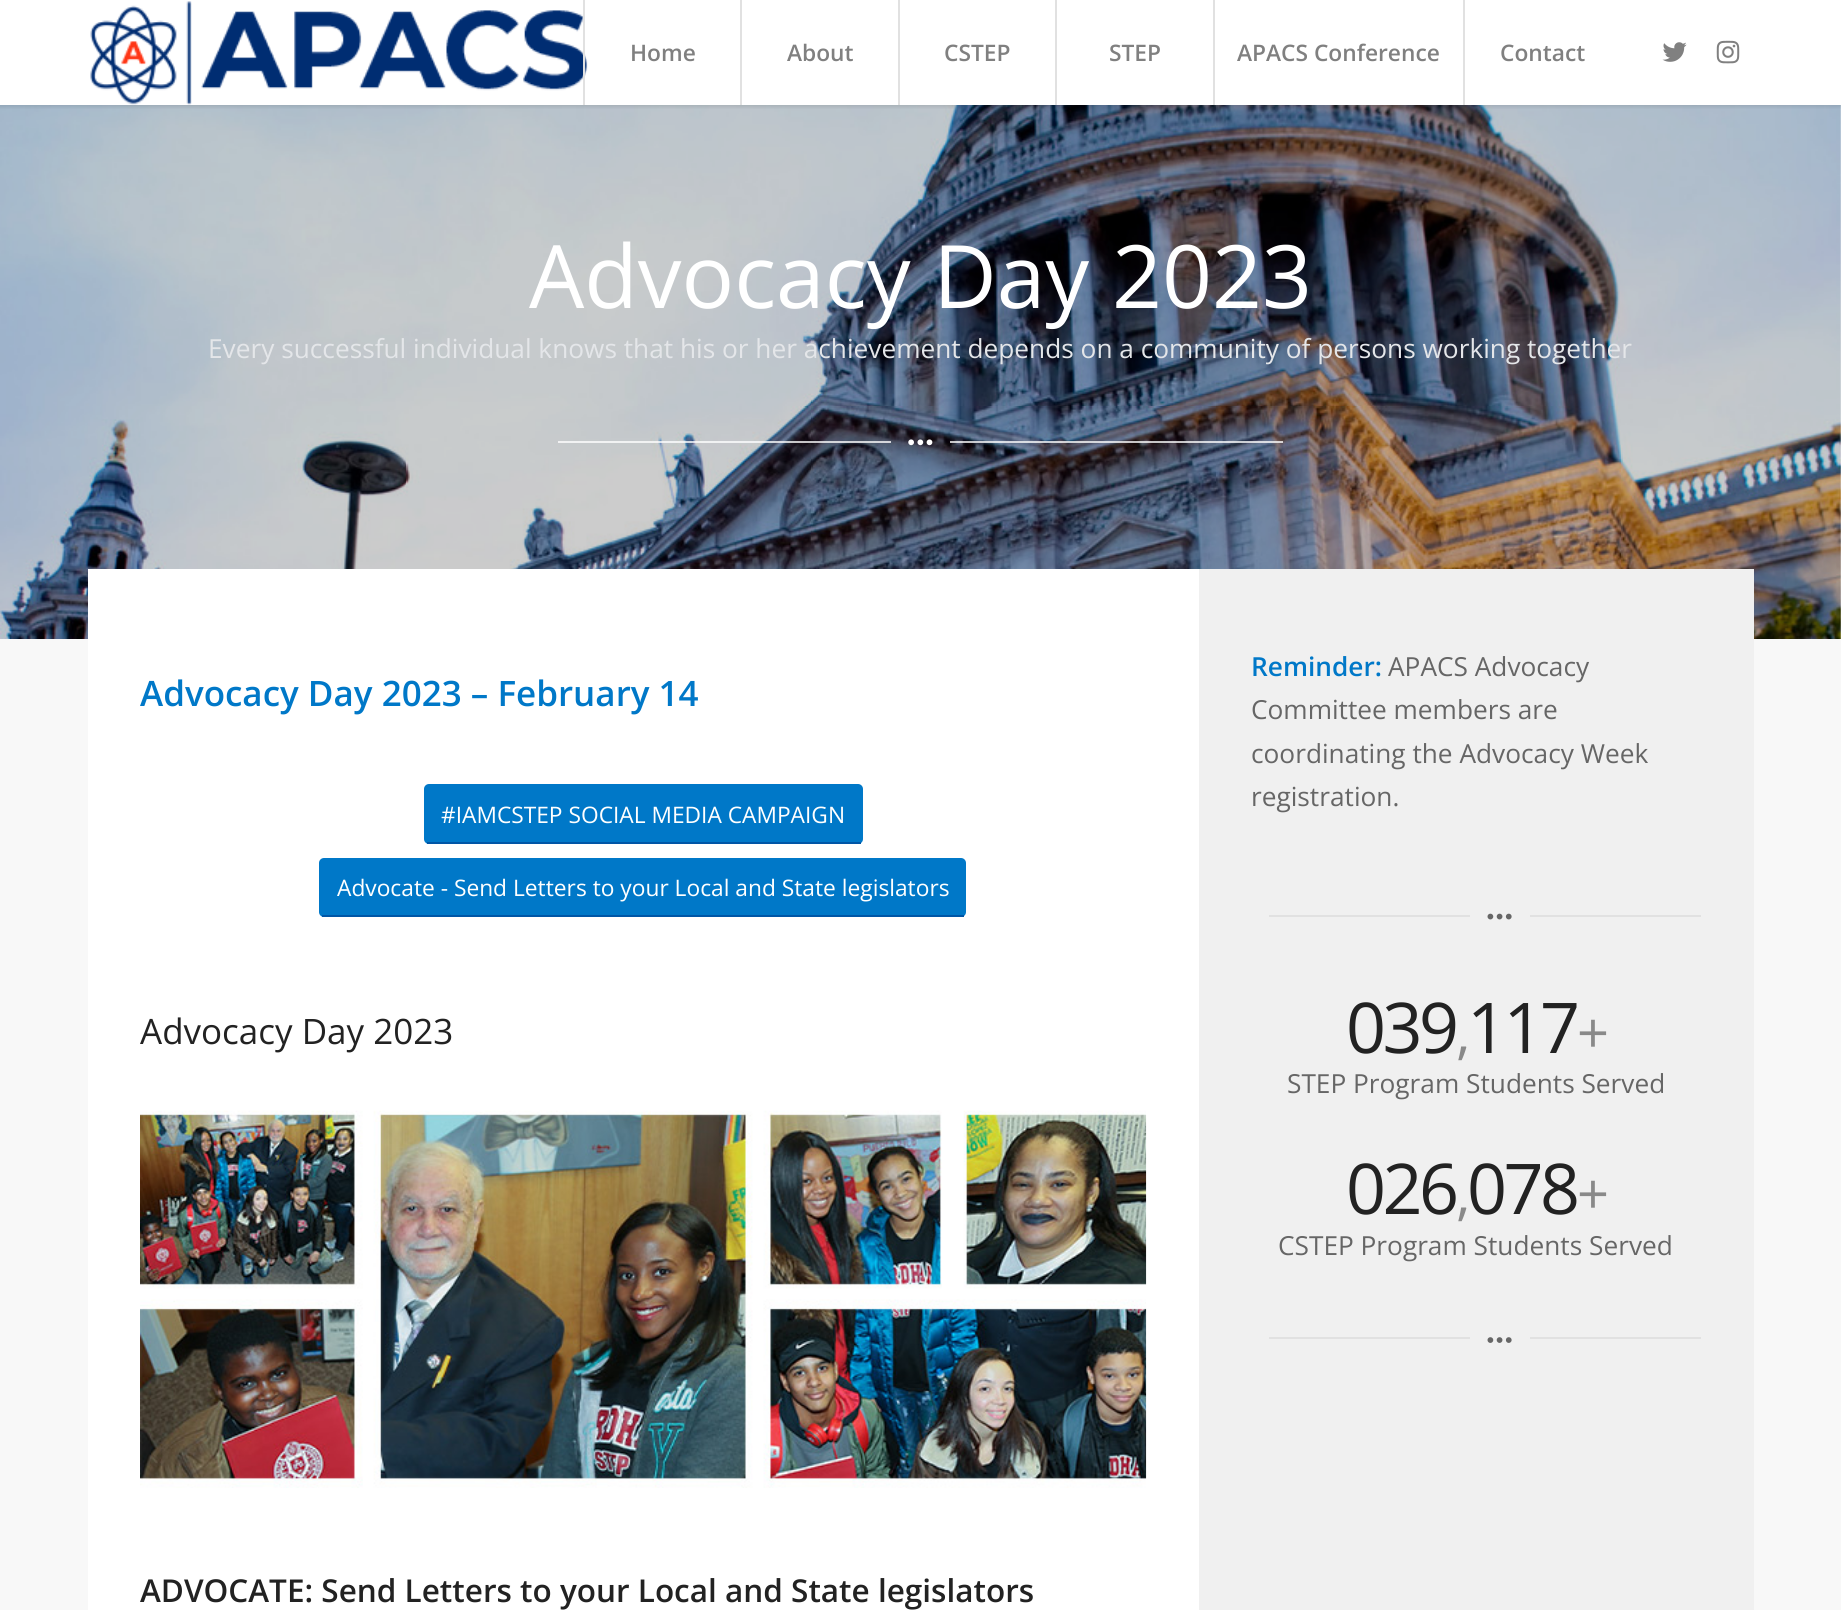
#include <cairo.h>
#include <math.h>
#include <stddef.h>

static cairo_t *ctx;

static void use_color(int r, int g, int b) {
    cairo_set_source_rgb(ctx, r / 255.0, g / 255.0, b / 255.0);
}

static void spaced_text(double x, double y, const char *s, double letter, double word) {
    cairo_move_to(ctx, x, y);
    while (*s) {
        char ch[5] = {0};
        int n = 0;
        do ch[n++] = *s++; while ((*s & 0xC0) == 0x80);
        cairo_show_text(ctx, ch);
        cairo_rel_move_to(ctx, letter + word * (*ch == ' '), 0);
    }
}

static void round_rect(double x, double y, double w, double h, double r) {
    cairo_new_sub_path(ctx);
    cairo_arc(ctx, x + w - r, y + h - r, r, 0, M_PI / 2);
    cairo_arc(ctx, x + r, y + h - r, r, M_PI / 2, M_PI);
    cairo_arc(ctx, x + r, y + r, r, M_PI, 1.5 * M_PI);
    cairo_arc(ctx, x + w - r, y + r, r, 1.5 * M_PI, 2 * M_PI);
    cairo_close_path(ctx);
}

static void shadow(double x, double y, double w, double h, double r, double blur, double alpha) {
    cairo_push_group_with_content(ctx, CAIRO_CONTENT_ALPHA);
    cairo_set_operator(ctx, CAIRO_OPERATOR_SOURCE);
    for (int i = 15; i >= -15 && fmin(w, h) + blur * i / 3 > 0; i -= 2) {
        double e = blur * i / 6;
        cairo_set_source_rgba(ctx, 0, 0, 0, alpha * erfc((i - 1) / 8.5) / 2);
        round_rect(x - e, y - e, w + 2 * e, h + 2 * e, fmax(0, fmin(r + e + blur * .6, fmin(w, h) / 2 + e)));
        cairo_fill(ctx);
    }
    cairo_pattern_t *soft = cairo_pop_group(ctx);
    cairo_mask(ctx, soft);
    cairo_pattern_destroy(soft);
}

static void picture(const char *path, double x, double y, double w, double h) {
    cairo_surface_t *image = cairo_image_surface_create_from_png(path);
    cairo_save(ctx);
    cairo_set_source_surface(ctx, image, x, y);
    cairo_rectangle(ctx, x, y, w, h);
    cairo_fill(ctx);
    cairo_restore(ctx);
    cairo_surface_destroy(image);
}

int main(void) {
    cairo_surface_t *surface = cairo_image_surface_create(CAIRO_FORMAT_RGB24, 1841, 1610);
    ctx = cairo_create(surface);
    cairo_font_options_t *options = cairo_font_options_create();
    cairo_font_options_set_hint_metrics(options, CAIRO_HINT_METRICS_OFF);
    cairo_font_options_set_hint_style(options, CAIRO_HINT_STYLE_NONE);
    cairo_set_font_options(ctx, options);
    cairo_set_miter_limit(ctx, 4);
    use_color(255, 255, 255);
    cairo_paint(ctx);
    picture("img4.png", 0, 105, 1841, 534);
    cairo_save(ctx);
    cairo_rectangle(ctx, 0, 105, 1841, 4);
    cairo_clip(ctx);
    use_color(0, 0, 0);
    shadow(-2, -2, 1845, 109, 0, 2, 0.1);
    cairo_restore(ctx);
    picture("img1.png", 90, 1, 498, 104);
    use_color(225, 225, 225);
    cairo_rectangle(ctx, 583, 0, 2, 105);
    cairo_fill(ctx);
    cairo_select_font_face(ctx, "Open Sans SemiBold", CAIRO_FONT_SLANT_NORMAL, CAIRO_FONT_WEIGHT_NORMAL);
    cairo_set_font_size(ctx, 22.75);
    use_color(128, 128, 128);
    cairo_move_to(ctx, 630, 61);
    cairo_show_text(ctx, "Home");
    use_color(225, 225, 225);
    cairo_rectangle(ctx, 740, 0, 2, 105);
    cairo_fill(ctx);
    use_color(128, 128, 128);
    cairo_move_to(ctx, 787, 61);
    cairo_show_text(ctx, "About");
    use_color(225, 225, 225);
    cairo_rectangle(ctx, 898, 0, 2, 105);
    cairo_fill(ctx);
    use_color(128, 128, 128);
    cairo_move_to(ctx, 944, 61);
    cairo_show_text(ctx, "CSTEP");
    use_color(225, 225, 225);
    cairo_rectangle(ctx, 1055, 0, 2, 105);
    cairo_fill(ctx);
    use_color(128, 128, 128);
    cairo_move_to(ctx, 1109, 61);
    cairo_show_text(ctx, "STEP");
    use_color(225, 225, 225);
    cairo_rectangle(ctx, 1213, 0, 2, 105);
    cairo_fill(ctx);
    use_color(128, 128, 128);
    cairo_move_to(ctx, 1237, 61);
    cairo_show_text(ctx, "APACS Conference");
    use_color(225, 225, 225);
    cairo_rectangle(ctx, 1463, 0, 2, 105);
    cairo_fill(ctx);
    use_color(128, 128, 128);
    cairo_move_to(ctx, 1500, 61);
    cairo_show_text(ctx, "Contact");
    picture("img2.png", 1662, 42, 25, 20);
    picture("img3.png", 1716, 40, 24, 24);
    cairo_select_font_face(ctx, "Open Sans", CAIRO_FONT_SLANT_NORMAL, CAIRO_FONT_WEIGHT_NORMAL);
    cairo_set_font_size(ctx, 87.5);
    use_color(255, 255, 255);
    cairo_move_to(ctx, 529, 308);
    cairo_show_text(ctx, "Advocacy Day 2023");
    cairo_set_font_size(ctx, 26.25);
    use_color(228, 230, 233);
    cairo_move_to(ctx, 208, 358);
    cairo_show_text(ctx, "Every successful individual knows that his or her achievement depends on a community of persons working together");
    cairo_set_source_rgba(ctx, 1, 1, 1, 0.76);
    cairo_rectangle(ctx, 558, 441, 333, 2);
    cairo_fill(ctx);
    picture("img5.png", 908, 439, 25, 7);
    cairo_rectangle(ctx, 950, 441, 333, 2);
    cairo_fill(ctx);
    use_color(248, 248, 248);
    cairo_rectangle(ctx, 0, 639, 1841, 971);
    cairo_fill(ctx);
    use_color(255, 255, 255);
    cairo_rectangle(ctx, 88, 569, 1111, 1041);
    cairo_fill(ctx);
    cairo_select_font_face(ctx, "Open Sans SemiBold", CAIRO_FONT_SLANT_NORMAL, CAIRO_FONT_WEIGHT_NORMAL);
    cairo_set_font_size(ctx, 35);
    use_color(0, 120, 200);
    cairo_move_to(ctx, 140, 706);
    cairo_show_text(ctx, "Advocacy Day 2023 – February 14");
    round_rect(424, 784, 439, 60, 5);
    cairo_fill(ctx);
    use_color(0, 86, 166);
    cairo_rectangle(ctx, 427, 842, 434, 2);
    cairo_fill(ctx);
    cairo_select_font_face(ctx, "Open Sans", CAIRO_FONT_SLANT_NORMAL, CAIRO_FONT_WEIGHT_NORMAL);
    cairo_set_font_size(ctx, 22.75);
    use_color(255, 255, 255);
    cairo_move_to(ctx, 441, 823);
    cairo_show_text(ctx, "#IAMCSTEP SOCIAL MEDIA CAMPAIGN");
    use_color(0, 120, 200);
    round_rect(319, 858, 647, 59, 5);
    cairo_fill(ctx);
    use_color(0, 86, 166);
    cairo_rectangle(ctx, 322, 915, 642, 2);
    cairo_fill(ctx);
    use_color(255, 255, 255);
    cairo_move_to(ctx, 337, 896);
    cairo_show_text(ctx, "Advocate - Send Letters to your Local and State legislators");
    cairo_set_font_size(ctx, 35);
    use_color(34, 34, 34);
    cairo_move_to(ctx, 140, 1044);
    cairo_show_text(ctx, "Advocacy Day 2023");
    picture("img6.png", 140, 1110, 1007, 378);
    cairo_select_font_face(ctx, "Open Sans SemiBold", CAIRO_FONT_SLANT_NORMAL, CAIRO_FONT_WEIGHT_NORMAL);
    cairo_set_font_size(ctx, 31.5);
    cairo_move_to(ctx, 140, 1602);
    cairo_show_text(ctx, "ADVOCATE: Send Letters to your Local and State legislators");
    use_color(240, 240, 240);
    cairo_rectangle(ctx, 1199, 569, 555, 1041);
    cairo_fill(ctx);
    cairo_set_font_size(ctx, 26.25);
    use_color(0, 120, 200);
    cairo_move_to(ctx, 1251, 676);
    cairo_show_text(ctx, "Reminder:");
    cairo_select_font_face(ctx, "Open Sans", CAIRO_FONT_SLANT_NORMAL, CAIRO_FONT_WEIGHT_NORMAL);
    use_color(102, 102, 102);
    cairo_move_to(ctx, 1388, 676);
    cairo_show_text(ctx, "APACS Advocacy");
    cairo_move_to(ctx, 1251, 719);
    cairo_show_text(ctx, "Committee members are");
    cairo_move_to(ctx, 1251, 763);
    cairo_show_text(ctx, "coordinating the Advocacy Week");
    cairo_move_to(ctx, 1251, 806);
    cairo_show_text(ctx, "registration.");
    use_color(225, 225, 225);
    cairo_rectangle(ctx, 1269, 915, 201, 2);
    cairo_fill(ctx);
    picture("img7.png", 1487, 913, 25, 7);
    cairo_rectangle(ctx, 1530, 915, 171, 2);
    cairo_fill(ctx);
    cairo_set_font_size(ctx, 70);
    use_color(34, 34, 34);
    spaced_text(1346, 1053, "039", -3.5, 0);
    spaced_text(1467, 1053, "117", -3.5, 0);
    cairo_set_font_size(ctx, 56);
    use_color(137, 137, 137);
    spaced_text(1577, 1053, "+", -3.5, 0);
    spaced_text(1456, 1053, ",", -3.5, 0);
    cairo_set_font_size(ctx, 26.25);
    use_color(102, 102, 102);
    cairo_move_to(ctx, 1287, 1093);
    cairo_show_text(ctx, "STEP Program Students Served");
    cairo_set_font_size(ctx, 70);
    use_color(34, 34, 34);
    spaced_text(1346, 1214, "026", -3.5, 0);
    spaced_text(1467, 1214, "078", -3.5, 0);
    cairo_set_font_size(ctx, 56);
    use_color(137, 137, 137);
    spaced_text(1577, 1214, "+", -3.5, 0);
    spaced_text(1456, 1214, ",", -3.5, 0);
    cairo_set_font_size(ctx, 26.25);
    use_color(102, 102, 102);
    cairo_move_to(ctx, 1278, 1255);
    cairo_show_text(ctx, "CSTEP Program Students Served");
    use_color(225, 225, 225);
    cairo_rectangle(ctx, 1269, 1337, 201, 2);
    cairo_fill(ctx);
    picture("img8.png", 1487, 1337, 25, 6);
    cairo_rectangle(ctx, 1530, 1337, 171, 2);
    cairo_fill(ctx);
    cairo_surface_write_to_png(surface, "result.png");
    cairo_font_options_destroy(options);
    cairo_destroy(ctx);
    cairo_surface_destroy(surface);
    return 0;
}
